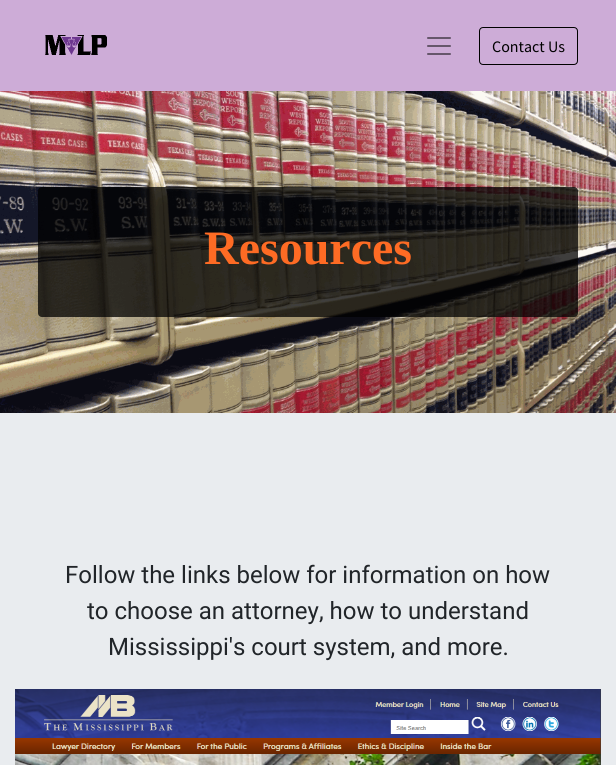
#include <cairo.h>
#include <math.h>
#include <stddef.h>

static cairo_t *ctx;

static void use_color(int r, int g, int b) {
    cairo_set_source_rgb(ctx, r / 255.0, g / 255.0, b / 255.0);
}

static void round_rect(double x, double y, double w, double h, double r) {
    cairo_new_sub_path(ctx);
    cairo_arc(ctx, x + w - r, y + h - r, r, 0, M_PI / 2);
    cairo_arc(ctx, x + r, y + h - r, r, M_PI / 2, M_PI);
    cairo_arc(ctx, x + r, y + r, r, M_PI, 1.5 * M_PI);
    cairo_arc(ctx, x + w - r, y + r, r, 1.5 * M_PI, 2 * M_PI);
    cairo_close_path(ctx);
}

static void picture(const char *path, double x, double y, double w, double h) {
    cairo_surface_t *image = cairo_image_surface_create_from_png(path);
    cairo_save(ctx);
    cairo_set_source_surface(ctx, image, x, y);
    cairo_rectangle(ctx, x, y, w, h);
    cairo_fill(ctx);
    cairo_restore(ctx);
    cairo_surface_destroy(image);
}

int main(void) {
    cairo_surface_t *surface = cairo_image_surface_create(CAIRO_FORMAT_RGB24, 616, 765);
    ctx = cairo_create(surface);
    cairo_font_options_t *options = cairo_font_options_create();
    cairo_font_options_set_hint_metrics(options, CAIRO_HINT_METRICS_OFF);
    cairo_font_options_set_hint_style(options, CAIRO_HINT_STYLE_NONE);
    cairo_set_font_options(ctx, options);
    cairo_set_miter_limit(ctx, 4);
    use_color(255, 255, 255);
    cairo_paint(ctx);
    use_color(205, 172, 215);
    cairo_rectangle(ctx, 0, 0, 616, 91);
    cairo_fill(ctx);
    picture("img1.png", 45, 35, 62, 20);
    picture("img2.png", 427, 37, 24, 18);
    round_rect(479.5, 27.5, 98, 37, 3.5);
    use_color(0, 0, 0);
    cairo_set_line_width(ctx, 1);
    cairo_stroke(ctx);
    cairo_select_font_face(ctx, "Source Sans Pro", CAIRO_FONT_SLANT_NORMAL, CAIRO_FONT_WEIGHT_NORMAL);
    cairo_set_font_size(ctx, 16);
    cairo_move_to(ctx, 492, 52);
    cairo_show_text(ctx, "Contact Us");
    picture("img3.png", 0, 91, 616, 322);
    cairo_set_source_rgba(ctx, 0, 0, 0, 0.75);
    round_rect(38, 187, 540, 130, 4);
    cairo_fill(ctx);
    cairo_select_font_face(ctx, "Liberation Serif", CAIRO_FONT_SLANT_NORMAL, CAIRO_FONT_WEIGHT_BOLD);
    cairo_set_font_size(ctx, 48);
    use_color(254, 107, 36);
    cairo_move_to(ctx, 204, 264);
    cairo_show_text(ctx, "Resources");
    use_color(233, 236, 239);
    cairo_rectangle(ctx, 0, 413, 616, 352);
    cairo_fill(ctx);
    cairo_select_font_face(ctx, "Roboto", CAIRO_FONT_SLANT_NORMAL, CAIRO_FONT_WEIGHT_NORMAL);
    cairo_set_font_size(ctx, 24);
    use_color(33, 37, 41);
    cairo_move_to(ctx, 65, 583);
    cairo_show_text(ctx, "Follow the links below for information on how");
    cairo_move_to(ctx, 87, 619);
    cairo_show_text(ctx, "to choose an attorney, how to understand");
    cairo_move_to(ctx, 108, 655);
    cairo_show_text(ctx, "Mississippi's court system, and more.");
    use_color(58, 59, 60);
    cairo_rectangle(ctx, 600, 689, 1, 76);
    cairo_fill(ctx);
    picture("img4.png", 15, 689, 586, 76);
    cairo_surface_write_to_png(surface, "result.png");
    cairo_font_options_destroy(options);
    cairo_destroy(ctx);
    cairo_surface_destroy(surface);
    return 0;
}
